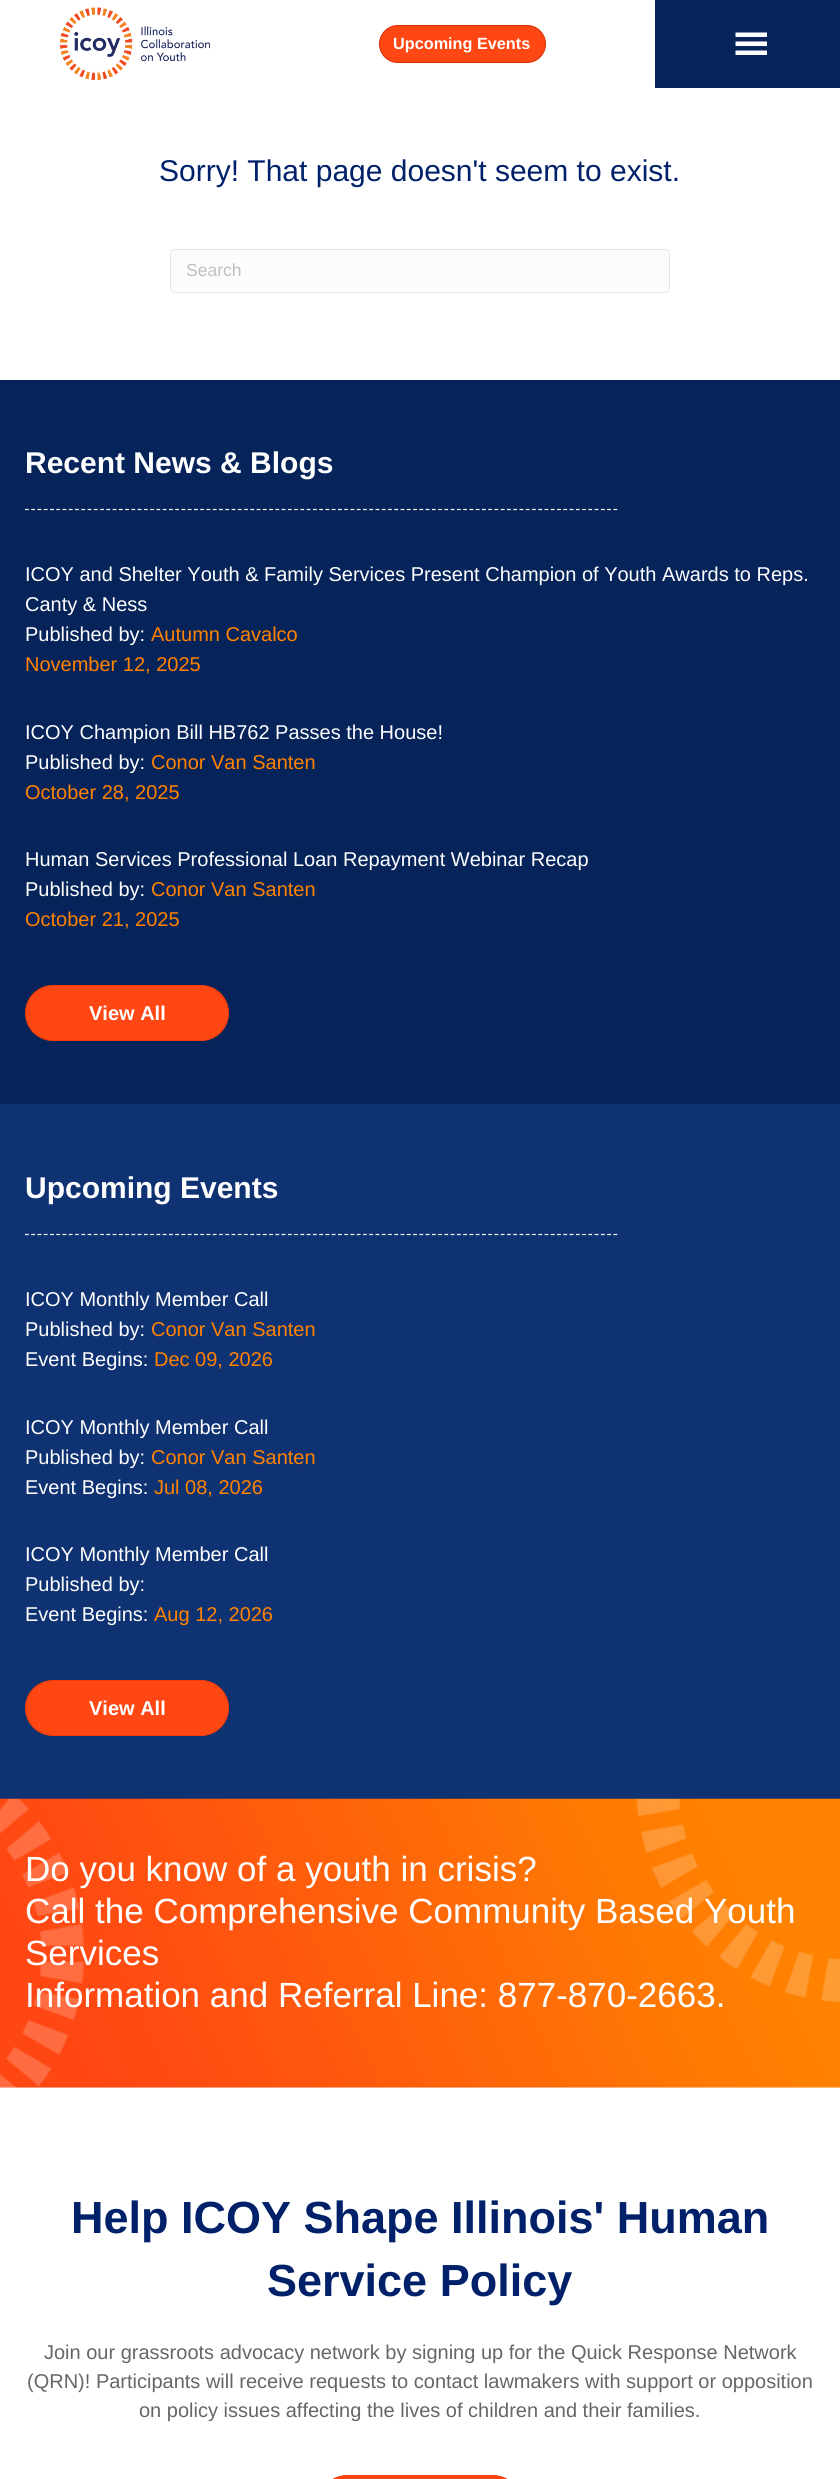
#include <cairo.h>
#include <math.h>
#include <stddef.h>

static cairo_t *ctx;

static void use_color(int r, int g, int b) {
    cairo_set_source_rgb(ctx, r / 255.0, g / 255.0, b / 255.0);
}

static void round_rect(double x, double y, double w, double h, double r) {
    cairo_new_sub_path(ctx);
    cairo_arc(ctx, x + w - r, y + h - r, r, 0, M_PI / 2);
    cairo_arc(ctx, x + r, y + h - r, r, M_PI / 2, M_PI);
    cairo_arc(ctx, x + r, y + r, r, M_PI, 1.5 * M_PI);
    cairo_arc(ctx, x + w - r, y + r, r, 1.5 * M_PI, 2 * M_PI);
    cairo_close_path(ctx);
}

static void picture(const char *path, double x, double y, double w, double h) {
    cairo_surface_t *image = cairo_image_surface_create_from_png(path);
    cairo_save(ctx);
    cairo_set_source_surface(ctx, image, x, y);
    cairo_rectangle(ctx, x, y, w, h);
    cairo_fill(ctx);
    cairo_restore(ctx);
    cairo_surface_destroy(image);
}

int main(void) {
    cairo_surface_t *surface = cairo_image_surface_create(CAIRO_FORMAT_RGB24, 840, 2479);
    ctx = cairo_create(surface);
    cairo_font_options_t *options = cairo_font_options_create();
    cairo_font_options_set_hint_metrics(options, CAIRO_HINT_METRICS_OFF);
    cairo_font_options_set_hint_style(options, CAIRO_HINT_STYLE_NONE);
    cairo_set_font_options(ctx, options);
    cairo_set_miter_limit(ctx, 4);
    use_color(244, 244, 244);
    cairo_paint(ctx);
    use_color(255, 255, 255);
    cairo_rectangle(ctx, 0, 0, 655, 88);
    cairo_fill(ctx);
    picture("img1.png", 60, 7, 150, 73);
    use_color(255, 71, 19);
    round_rect(379.5, 25.5, 166, 37, 18.5);
    cairo_fill_preserve(ctx);
    use_color(213, 47, 0);
    cairo_set_line_width(ctx, 1);
    cairo_stroke(ctx);
    cairo_select_font_face(ctx, "Liberation Sans", CAIRO_FONT_SLANT_NORMAL, CAIRO_FONT_WEIGHT_BOLD);
    cairo_set_font_size(ctx, 16.25);
    use_color(255, 255, 255);
    cairo_move_to(ctx, 393, 49);
    cairo_show_text(ctx, "Upcoming Events");
    use_color(6, 36, 90);
    cairo_rectangle(ctx, 655, 0, 185, 88);
    cairo_fill(ctx);
    picture("img2.png", 735, 32, 32, 23);
    use_color(255, 255, 255);
    cairo_rectangle(ctx, 0, 88, 840, 292);
    cairo_fill(ctx);
    cairo_select_font_face(ctx, "Liberation Sans", CAIRO_FONT_SLANT_NORMAL, CAIRO_FONT_WEIGHT_NORMAL);
    cairo_set_font_size(ctx, 30);
    use_color(0, 33, 105);
    cairo_move_to(ctx, 159, 181);
    cairo_show_text(ctx, "Sorry! That page doesn't seem to exist.");
    use_color(252, 252, 252);
    round_rect(171, 250, 498, 41, 4);
    cairo_fill(ctx);
    round_rect(170.5, 249.5, 499, 43, 4.5);
    use_color(230, 230, 230);
    cairo_stroke(ctx);
    cairo_set_font_size(ctx, 17.5);
    use_color(192, 192, 192);
    cairo_move_to(ctx, 186, 276);
    cairo_show_text(ctx, "Search");
    use_color(6, 36, 90);
    cairo_rectangle(ctx, 0, 380, 840, 724);
    cairo_fill(ctx);
    cairo_select_font_face(ctx, "Liberation Sans", CAIRO_FONT_SLANT_NORMAL, CAIRO_FONT_WEIGHT_BOLD);
    cairo_set_font_size(ctx, 30);
    use_color(255, 255, 255);
    cairo_move_to(ctx, 25, 473);
    cairo_show_text(ctx, "Recent News & Blogs");
    cairo_new_path(ctx);
    cairo_move_to(ctx, 25, 509.5);
    cairo_line_to(ctx, 617.5, 509.5);
    cairo_set_line_width(ctx, 1.2);
    cairo_set_dash(ctx, (double[]){3.75, 2.51}, 2, 0);
    cairo_stroke(ctx);
    cairo_select_font_face(ctx, "Liberation Sans", CAIRO_FONT_SLANT_NORMAL, CAIRO_FONT_WEIGHT_NORMAL);
    cairo_set_font_size(ctx, 20);
    cairo_move_to(ctx, 25, 581);
    cairo_show_text(ctx, "ICOY and Shelter Youth & Family Services Present Champion of Youth Awards to Reps.");
    cairo_move_to(ctx, 25, 611);
    cairo_show_text(ctx, "Canty & Ness");
    cairo_move_to(ctx, 25, 641);
    cairo_show_text(ctx, "Published by:");
    use_color(255, 131, 0);
    cairo_move_to(ctx, 151, 641);
    cairo_show_text(ctx, "Autumn Cavalco");
    cairo_move_to(ctx, 25, 671);
    cairo_show_text(ctx, "November 12, 2025");
    use_color(255, 255, 255);
    cairo_move_to(ctx, 25, 739);
    cairo_show_text(ctx, "ICOY Champion Bill HB762 Passes the House!");
    cairo_move_to(ctx, 25, 769);
    cairo_show_text(ctx, "Published by:");
    use_color(255, 131, 0);
    cairo_move_to(ctx, 151, 769);
    cairo_show_text(ctx, "Conor Van Santen");
    cairo_move_to(ctx, 25, 799);
    cairo_show_text(ctx, "October 28, 2025");
    use_color(255, 255, 255);
    cairo_move_to(ctx, 25, 866);
    cairo_show_text(ctx, "Human Services Professional Loan Repayment Webinar Recap");
    cairo_move_to(ctx, 25, 896);
    cairo_show_text(ctx, "Published by:");
    use_color(255, 131, 0);
    cairo_move_to(ctx, 151, 896);
    cairo_show_text(ctx, "Conor Van Santen");
    cairo_move_to(ctx, 25, 926);
    cairo_show_text(ctx, "October 21, 2025");
    use_color(255, 71, 19);
    round_rect(25.5, 985.5, 203, 55, 27.5);
    cairo_fill_preserve(ctx);
    use_color(243, 59, 7);
    cairo_set_line_width(ctx, 1);
    cairo_set_dash(ctx, NULL, 0, 0);
    cairo_stroke(ctx);
    cairo_select_font_face(ctx, "Liberation Sans", CAIRO_FONT_SLANT_NORMAL, CAIRO_FONT_WEIGHT_BOLD);
    use_color(255, 255, 255);
    cairo_move_to(ctx, 89, 1020);
    cairo_show_text(ctx, "View All");
    use_color(14, 50, 114);
    cairo_rectangle(ctx, 0, 1104, 840, 695);
    cairo_fill(ctx);
    cairo_set_font_size(ctx, 30);
    use_color(255, 255, 255);
    cairo_move_to(ctx, 25, 1198);
    cairo_show_text(ctx, "Upcoming Events");
    cairo_new_path(ctx);
    cairo_move_to(ctx, 25, 1234.5);
    cairo_line_to(ctx, 617.5, 1234.5);
    cairo_set_line_width(ctx, 1.2);
    cairo_set_dash(ctx, (double[]){3.75, 2.51}, 2, 0);
    cairo_stroke(ctx);
    cairo_select_font_face(ctx, "Liberation Sans", CAIRO_FONT_SLANT_NORMAL, CAIRO_FONT_WEIGHT_NORMAL);
    cairo_set_font_size(ctx, 20);
    cairo_move_to(ctx, 25, 1306);
    cairo_show_text(ctx, "ICOY Monthly Member Call");
    cairo_move_to(ctx, 25, 1336);
    cairo_show_text(ctx, "Published by:");
    use_color(255, 131, 0);
    cairo_move_to(ctx, 151, 1336);
    cairo_show_text(ctx, "Conor Van Santen");
    use_color(255, 255, 255);
    cairo_move_to(ctx, 25, 1366);
    cairo_show_text(ctx, "Event Begins:");
    use_color(255, 131, 0);
    cairo_move_to(ctx, 154, 1366);
    cairo_show_text(ctx, "Dec 09, 2026");
    use_color(255, 255, 255);
    cairo_move_to(ctx, 25, 1434);
    cairo_show_text(ctx, "ICOY Monthly Member Call");
    cairo_move_to(ctx, 25, 1464);
    cairo_show_text(ctx, "Published by:");
    use_color(255, 131, 0);
    cairo_move_to(ctx, 151, 1464);
    cairo_show_text(ctx, "Conor Van Santen");
    use_color(255, 255, 255);
    cairo_move_to(ctx, 25, 1494);
    cairo_show_text(ctx, "Event Begins:");
    use_color(255, 131, 0);
    cairo_move_to(ctx, 154, 1494);
    cairo_show_text(ctx, "Jul 08, 2026");
    use_color(255, 255, 255);
    cairo_move_to(ctx, 25, 1561);
    cairo_show_text(ctx, "ICOY Monthly Member Call");
    cairo_move_to(ctx, 25, 1591);
    cairo_show_text(ctx, "Published by:");
    cairo_move_to(ctx, 25, 1621);
    cairo_show_text(ctx, "Event Begins:");
    use_color(255, 131, 0);
    cairo_move_to(ctx, 154, 1621);
    cairo_show_text(ctx, "Aug 12, 2026");
    use_color(255, 71, 19);
    round_rect(25.5, 1680.5, 203, 55, 27.5);
    cairo_fill_preserve(ctx);
    use_color(243, 59, 7);
    cairo_set_line_width(ctx, 1);
    cairo_set_dash(ctx, NULL, 0, 0);
    cairo_stroke(ctx);
    cairo_select_font_face(ctx, "Liberation Sans", CAIRO_FONT_SLANT_NORMAL, CAIRO_FONT_WEIGHT_BOLD);
    use_color(255, 255, 255);
    cairo_move_to(ctx, 89, 1715);
    cairo_show_text(ctx, "View All");
    picture("img3.png", 0, 1798, 840, 290);
    cairo_select_font_face(ctx, "Liberation Sans", CAIRO_FONT_SLANT_NORMAL, CAIRO_FONT_WEIGHT_NORMAL);
    cairo_set_font_size(ctx, 35);
    cairo_move_to(ctx, 25, 1881);
    cairo_show_text(ctx, "Do you know of a youth in crisis?");
    cairo_move_to(ctx, 25, 1923);
    cairo_show_text(ctx, "Call the Comprehensive Community Based Youth");
    cairo_move_to(ctx, 25, 1965);
    cairo_show_text(ctx, "Services");
    cairo_move_to(ctx, 25, 2007);
    cairo_show_text(ctx, "Information and Referral Line: 877-870-2663.");
    cairo_rectangle(ctx, 0, 2088, 840, 391);
    cairo_fill(ctx);
    cairo_select_font_face(ctx, "Liberation Sans", CAIRO_FONT_SLANT_NORMAL, CAIRO_FONT_WEIGHT_BOLD);
    cairo_set_font_size(ctx, 45);
    use_color(0, 33, 105);
    cairo_move_to(ctx, 71, 2233);
    cairo_show_text(ctx, "Help ICOY Shape Illinois' Human");
    cairo_move_to(ctx, 267, 2296);
    cairo_show_text(ctx, "Service Policy");
    cairo_select_font_face(ctx, "Liberation Sans", CAIRO_FONT_SLANT_NORMAL, CAIRO_FONT_WEIGHT_NORMAL);
    cairo_set_font_size(ctx, 20);
    use_color(102, 102, 102);
    cairo_move_to(ctx, 44, 2359);
    cairo_show_text(ctx, "Join our grassroots advocacy network by signing up for the Quick Response Network");
    cairo_move_to(ctx, 27, 2388);
    cairo_show_text(ctx, "(QRN)! Participants will receive requests to contact lawmakers with support or opposition");
    cairo_move_to(ctx, 139, 2417);
    cairo_show_text(ctx, "on policy issues affecting the lives of children and their families.");
    use_color(255, 71, 19);
    round_rect(319.5, 2475.5, 201, 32, 27.5);
    cairo_fill_preserve(ctx);
    use_color(243, 59, 7);
    cairo_stroke(ctx);
    cairo_surface_write_to_png(surface, "result.png");
    cairo_font_options_destroy(options);
    cairo_destroy(ctx);
    cairo_surface_destroy(surface);
    return 0;
}
